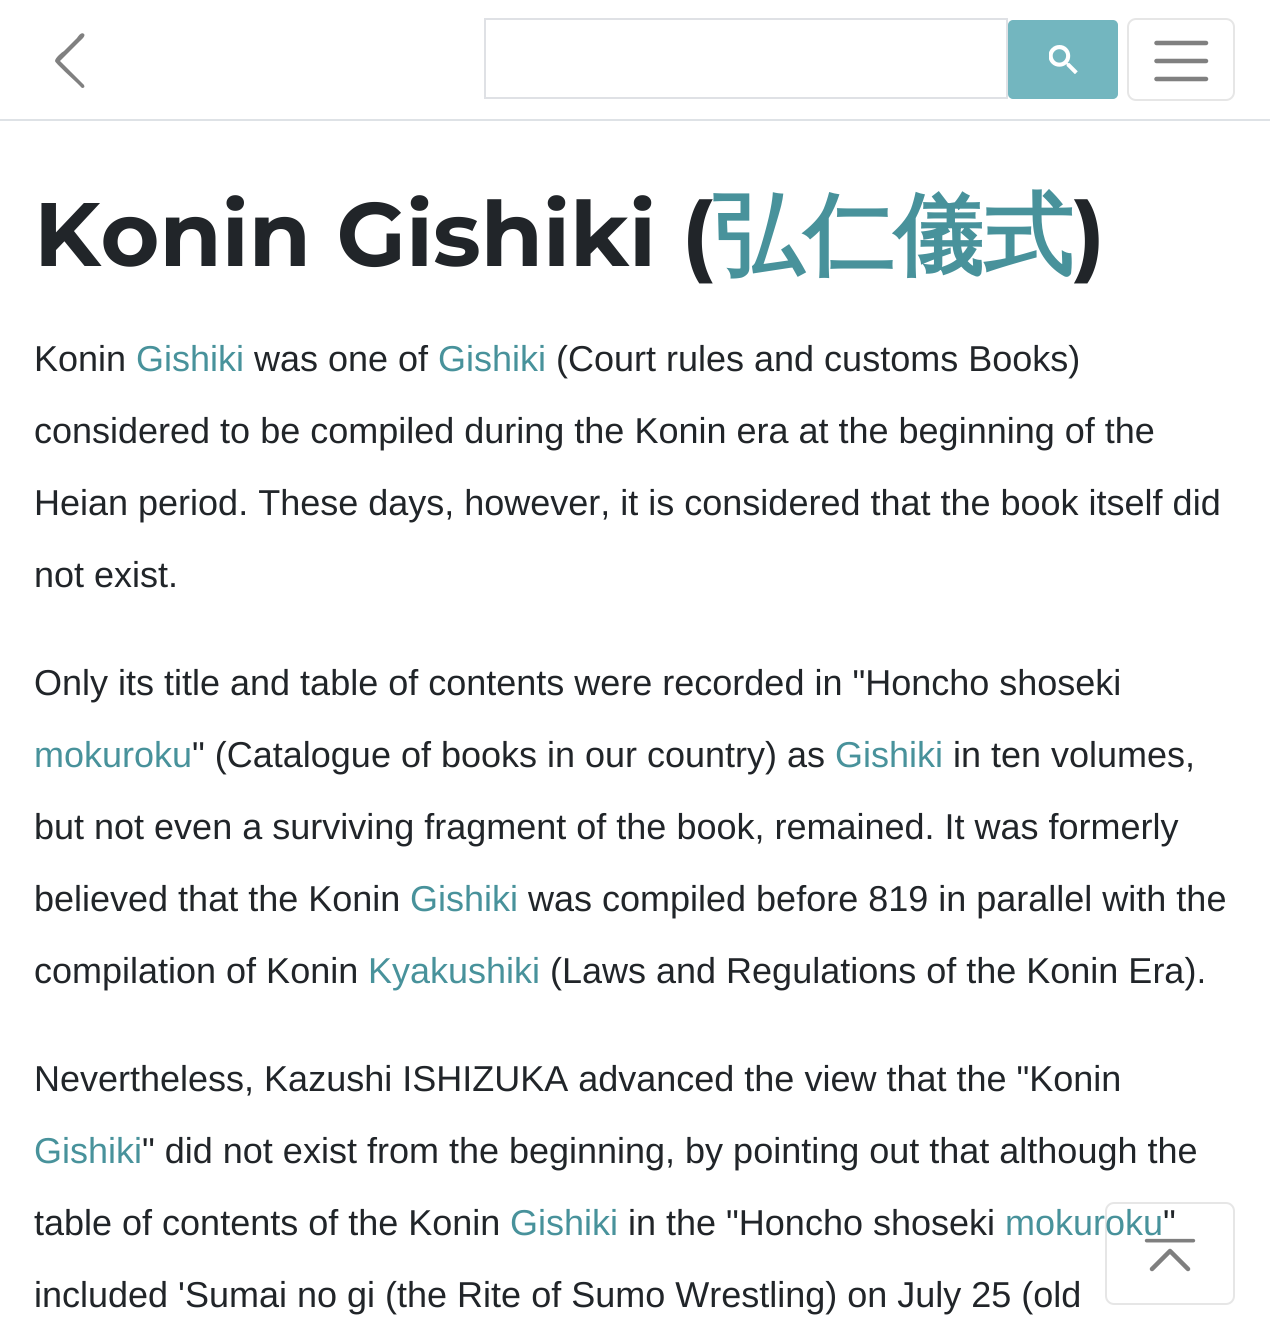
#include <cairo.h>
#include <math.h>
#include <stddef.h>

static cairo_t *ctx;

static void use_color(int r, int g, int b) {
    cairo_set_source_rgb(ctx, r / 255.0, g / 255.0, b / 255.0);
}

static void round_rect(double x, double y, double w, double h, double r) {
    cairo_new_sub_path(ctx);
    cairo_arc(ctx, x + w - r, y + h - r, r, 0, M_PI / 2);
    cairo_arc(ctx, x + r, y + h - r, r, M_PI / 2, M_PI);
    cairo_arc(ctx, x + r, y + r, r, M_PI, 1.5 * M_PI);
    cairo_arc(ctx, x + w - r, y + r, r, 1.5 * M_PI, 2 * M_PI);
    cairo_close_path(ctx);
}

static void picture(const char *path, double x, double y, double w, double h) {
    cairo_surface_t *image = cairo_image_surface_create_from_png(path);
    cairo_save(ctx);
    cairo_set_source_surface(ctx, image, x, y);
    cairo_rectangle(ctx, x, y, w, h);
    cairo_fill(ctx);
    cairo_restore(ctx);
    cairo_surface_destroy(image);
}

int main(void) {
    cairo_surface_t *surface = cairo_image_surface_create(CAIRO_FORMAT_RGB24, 1270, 1340);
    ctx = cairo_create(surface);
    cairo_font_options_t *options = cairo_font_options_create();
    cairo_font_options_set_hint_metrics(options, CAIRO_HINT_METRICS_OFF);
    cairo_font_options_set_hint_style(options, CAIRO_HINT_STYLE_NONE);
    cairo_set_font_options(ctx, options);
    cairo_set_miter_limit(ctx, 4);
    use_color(255, 255, 255);
    cairo_paint(ctx);
    use_color(222, 226, 230);
    cairo_rectangle(ctx, 0, 119, 1270, 2);
    cairo_fill(ctx);
    use_color(128, 128, 128);
    cairo_set_fill_rule(ctx, CAIRO_FILL_RULE_EVEN_ODD);
    cairo_new_path(ctx);
    cairo_move_to(ctx, 84, 34);
    cairo_curve_to(ctx, 86, 36, 81, 40, 80, 41);
    cairo_line_to(ctx, 60, 61);
    cairo_line_to(ctx, 84, 85);
    cairo_curve_to(ctx, 85, 87, 84, 88, 82, 88);
    cairo_line_to(ctx, 77, 83);
    cairo_curve_to(ctx, 74, 80, 55, 63, 55, 61);
    cairo_curve_to(ctx, 55, 58, 62, 52, 64, 51);
    cairo_line_to(ctx, 77, 38);
    cairo_curve_to(ctx, 77, 38, 81, 31, 84, 34);
    cairo_close_path(ctx);
    cairo_fill(ctx);
    cairo_rectangle(ctx, 485, 19, 522, 79);
    use_color(223, 225, 229);
    cairo_stroke(ctx);
    use_color(115, 182, 191);
    round_rect(1009, 21, 108, 77, 4);
    cairo_fill_preserve(ctx);
    cairo_stroke(ctx);
    picture("img1.png", 1049, 45, 29, 29);
    round_rect(1128, 19, 106, 81, 8);
    use_color(230, 230, 230);
    cairo_stroke(ctx);
    cairo_new_path(ctx);
    cairo_move_to(ctx, 1156.5, 43);
    cairo_line_to(ctx, 1206, 43);
    cairo_move_to(ctx, 1156.5, 61);
    cairo_line_to(ctx, 1206, 61);
    cairo_move_to(ctx, 1156.5, 79);
    cairo_line_to(ctx, 1206, 79);
    use_color(128, 128, 128);
    cairo_set_line_width(ctx, 4.5);
    cairo_set_line_cap(ctx, CAIRO_LINE_CAP_ROUND);
    cairo_stroke(ctx);
    cairo_select_font_face(ctx, "Montserrat", CAIRO_FONT_SLANT_NORMAL, CAIRO_FONT_WEIGHT_BOLD);
    cairo_set_font_size(ctx, 90);
    use_color(33, 37, 41);
    cairo_move_to(ctx, 34, 266);
    cairo_show_text(ctx, "Konin Gishiki (");
    cairo_select_font_face(ctx, "WenQuanYi Zen Hei", CAIRO_FONT_SLANT_NORMAL, CAIRO_FONT_WEIGHT_BOLD);
    use_color(72, 146, 155);
    cairo_move_to(ctx, 713, 266);
    cairo_show_text(ctx, "弘仁儀式");
    cairo_select_font_face(ctx, "Montserrat", CAIRO_FONT_SLANT_NORMAL, CAIRO_FONT_WEIGHT_BOLD);
    use_color(33, 37, 41);
    cairo_move_to(ctx, 1073, 266);
    cairo_show_text(ctx, ")");
    cairo_select_font_face(ctx, "Liberation Sans", CAIRO_FONT_SLANT_NORMAL, CAIRO_FONT_WEIGHT_NORMAL);
    cairo_set_font_size(ctx, 36);
    cairo_move_to(ctx, 34, 371);
    cairo_show_text(ctx, "Konin");
    use_color(72, 146, 155);
    cairo_move_to(ctx, 136, 371);
    cairo_show_text(ctx, "Gishiki");
    use_color(33, 37, 41);
    cairo_move_to(ctx, 254, 371);
    cairo_show_text(ctx, "was one of");
    use_color(72, 146, 155);
    cairo_move_to(ctx, 438, 371);
    cairo_show_text(ctx, "Gishiki");
    use_color(33, 37, 41);
    cairo_move_to(ctx, 556, 371);
    cairo_show_text(ctx, "(Court rules and customs Books)");
    cairo_move_to(ctx, 34, 443);
    cairo_show_text(ctx, "considered to be compiled during the Konin era at the beginning of the");
    cairo_move_to(ctx, 34, 515);
    cairo_show_text(ctx, "Heian period. These days, however, it is considered that the book itself did");
    cairo_move_to(ctx, 34, 587);
    cairo_show_text(ctx, "not exist.");
    cairo_move_to(ctx, 34, 695);
    cairo_show_text(ctx, "Only its title and table of contents were recorded in \"Honcho shoseki");
    use_color(72, 146, 155);
    cairo_move_to(ctx, 34, 767);
    cairo_show_text(ctx, "mokuroku");
    use_color(33, 37, 41);
    cairo_move_to(ctx, 192, 767);
    cairo_show_text(ctx, "\" (Catalogue of books in our country) as");
    use_color(72, 146, 155);
    cairo_move_to(ctx, 835, 767);
    cairo_show_text(ctx, "Gishiki");
    use_color(33, 37, 41);
    cairo_move_to(ctx, 953, 767);
    cairo_show_text(ctx, "in ten volumes,");
    cairo_move_to(ctx, 34, 839);
    cairo_show_text(ctx, "but not even a surviving fragment of the book, remained. It was formerly");
    cairo_move_to(ctx, 34, 911);
    cairo_show_text(ctx, "believed that the Konin");
    use_color(72, 146, 155);
    cairo_move_to(ctx, 410, 911);
    cairo_show_text(ctx, "Gishiki");
    use_color(33, 37, 41);
    cairo_move_to(ctx, 528, 911);
    cairo_show_text(ctx, "was compiled before 819 in parallel with the");
    cairo_move_to(ctx, 34, 983);
    cairo_show_text(ctx, "compilation of Konin");
    use_color(72, 146, 155);
    cairo_move_to(ctx, 368, 983);
    cairo_show_text(ctx, "Kyakushiki");
    use_color(33, 37, 41);
    cairo_move_to(ctx, 550, 983);
    cairo_show_text(ctx, "(Laws and Regulations of the Konin Era).");
    cairo_move_to(ctx, 34, 1091);
    cairo_show_text(ctx, "Nevertheless, Kazushi ISHIZUKA advanced the view that the \"Konin");
    use_color(72, 146, 155);
    cairo_move_to(ctx, 34, 1163);
    cairo_show_text(ctx, "Gishiki");
    use_color(33, 37, 41);
    cairo_move_to(ctx, 142, 1163);
    cairo_show_text(ctx, "\" did not exist from the beginning, by pointing out that although the");
    cairo_move_to(ctx, 34, 1235);
    cairo_show_text(ctx, "table of contents of the Konin");
    use_color(72, 146, 155);
    cairo_move_to(ctx, 510, 1235);
    cairo_show_text(ctx, "Gishiki");
    use_color(33, 37, 41);
    cairo_move_to(ctx, 628, 1235);
    cairo_show_text(ctx, "in the \"Honcho shoseki");
    use_color(72, 146, 155);
    cairo_move_to(ctx, 1005, 1235);
    cairo_show_text(ctx, "mokuroku");
    use_color(33, 37, 41);
    cairo_move_to(ctx, 1163, 1235);
    cairo_show_text(ctx, "\"");
    cairo_move_to(ctx, 34, 1307);
    cairo_show_text(ctx, "included 'Sumai no gi (the Rite of Sumo Wrestling) on July 25 (old");
    round_rect(1106, 1203, 128, 101, 8);
    cairo_set_source_rgba(ctx, 0, 0, 0, 0.1);
    cairo_set_line_width(ctx, 2);
    cairo_set_line_cap(ctx, CAIRO_LINE_CAP_BUTT);
    cairo_stroke(ctx);
    picture("img2.png", 1144, 1238, 52, 34);
    cairo_surface_write_to_png(surface, "result.png");
    cairo_font_options_destroy(options);
    cairo_destroy(ctx);
    cairo_surface_destroy(surface);
    return 0;
}
